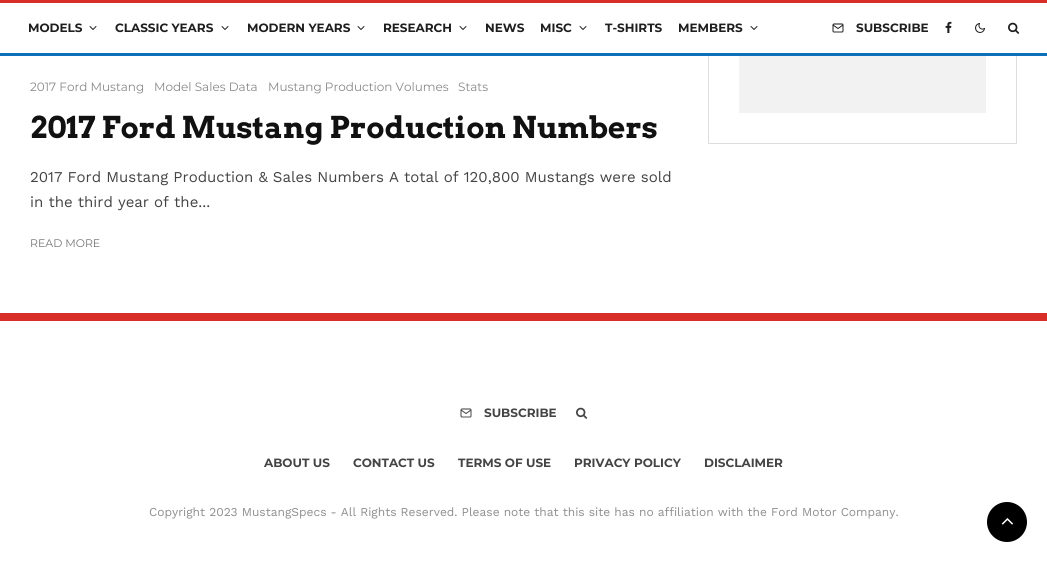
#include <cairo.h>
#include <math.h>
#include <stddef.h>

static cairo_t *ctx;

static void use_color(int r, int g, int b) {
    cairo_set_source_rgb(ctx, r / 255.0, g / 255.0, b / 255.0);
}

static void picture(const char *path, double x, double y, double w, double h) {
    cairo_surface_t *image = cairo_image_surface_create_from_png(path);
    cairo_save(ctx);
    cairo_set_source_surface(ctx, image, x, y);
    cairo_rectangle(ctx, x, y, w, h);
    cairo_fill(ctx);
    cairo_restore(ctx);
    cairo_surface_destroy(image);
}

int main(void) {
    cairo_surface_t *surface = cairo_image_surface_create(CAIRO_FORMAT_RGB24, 1047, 562);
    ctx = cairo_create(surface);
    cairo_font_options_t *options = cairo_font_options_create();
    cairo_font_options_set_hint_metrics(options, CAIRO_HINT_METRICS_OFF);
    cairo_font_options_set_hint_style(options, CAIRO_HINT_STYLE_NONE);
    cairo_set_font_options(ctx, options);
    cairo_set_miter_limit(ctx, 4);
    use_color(255, 255, 255);
    cairo_paint(ctx);
    cairo_rectangle(ctx, 708.5, -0.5, 308, 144);
    use_color(221, 221, 221);
    cairo_set_line_width(ctx, 1);
    cairo_stroke(ctx);
    use_color(255, 255, 255);
    cairo_rectangle(ctx, 708, 3, 309, 50);
    cairo_fill(ctx);
    use_color(217, 46, 39);
    cairo_rectangle(ctx, 0, 0, 1047, 3);
    cairo_fill(ctx);
    use_color(14, 111, 185);
    cairo_rectangle(ctx, 0, 53, 1047, 3);
    cairo_fill(ctx);
    cairo_select_font_face(ctx, "Montserrat", CAIRO_FONT_SLANT_NORMAL, CAIRO_FONT_WEIGHT_BOLD);
    cairo_set_font_size(ctx, 12);
    use_color(30, 30, 30);
    cairo_move_to(ctx, 28, 32);
    cairo_show_text(ctx, "MODELS");
    picture("img1.png", 89, 26, 8, 4);
    cairo_move_to(ctx, 115, 32);
    cairo_show_text(ctx, "CLASSIC YEARS");
    picture("img1.png", 221, 26, 8, 4);
    cairo_move_to(ctx, 247, 32);
    cairo_show_text(ctx, "MODERN YEARS");
    picture("img1.png", 357, 26, 8, 4);
    cairo_move_to(ctx, 383, 32);
    cairo_show_text(ctx, "RESEARCH");
    picture("img1.png", 459, 26, 8, 4);
    cairo_move_to(ctx, 485, 32);
    cairo_show_text(ctx, "NEWS");
    cairo_move_to(ctx, 540, 32);
    cairo_show_text(ctx, "MISC");
    picture("img1.png", 579, 26, 8, 4);
    cairo_move_to(ctx, 605, 32);
    cairo_show_text(ctx, "T-SHIRTS");
    cairo_move_to(ctx, 678, 32);
    cairo_show_text(ctx, "MEMBERS");
    picture("img1.png", 750, 26, 8, 4);
    picture("img2.png", 832, 23, 12, 10);
    cairo_move_to(ctx, 856, 32);
    cairo_show_text(ctx, "SUBSCRIBE");
    picture("img3.png", 945, 21, 7, 12);
    picture("img4.png", 975, 23, 10, 10);
    picture("img5.png", 1008, 22, 12, 12);
    cairo_select_font_face(ctx, "Montserrat", CAIRO_FONT_SLANT_NORMAL, CAIRO_FONT_WEIGHT_NORMAL);
    use_color(136, 136, 136);
    cairo_move_to(ctx, 30, 91);
    cairo_show_text(ctx, "2017 Ford Mustang");
    cairo_move_to(ctx, 154, 91);
    cairo_show_text(ctx, "Model Sales Data");
    cairo_move_to(ctx, 268, 91);
    cairo_show_text(ctx, "Mustang Production Volumes");
    cairo_move_to(ctx, 458, 91);
    cairo_show_text(ctx, "Stats");
    cairo_select_font_face(ctx, "Arvo", CAIRO_FONT_SLANT_NORMAL, CAIRO_FONT_WEIGHT_BOLD);
    cairo_set_font_size(ctx, 30);
    use_color(17, 17, 17);
    cairo_move_to(ctx, 30, 138);
    cairo_show_text(ctx, "2017 Ford Mustang Production Numbers");
    cairo_select_font_face(ctx, "Work Sans", CAIRO_FONT_SLANT_NORMAL, CAIRO_FONT_WEIGHT_NORMAL);
    cairo_set_font_size(ctx, 15);
    use_color(68, 68, 68);
    cairo_move_to(ctx, 30, 182);
    cairo_show_text(ctx, "2017 Ford Mustang Production & Sales Numbers A total of 120,800 Mustangs were sold");
    cairo_move_to(ctx, 30, 207);
    cairo_show_text(ctx, "in the third year of the...");
    cairo_select_font_face(ctx, "Montserrat", CAIRO_FONT_SLANT_NORMAL, CAIRO_FONT_WEIGHT_NORMAL);
    cairo_set_font_size(ctx, 11);
    use_color(118, 118, 118);
    cairo_move_to(ctx, 30, 247);
    cairo_show_text(ctx, "READ MORE");
    use_color(242, 242, 242);
    cairo_rectangle(ctx, 739, 56, 247, 57);
    cairo_fill(ctx);
    use_color(216, 46, 39);
    cairo_rectangle(ctx, 0, 313, 1047, 8);
    cairo_fill(ctx);
    picture("img6.png", 460, 408, 12, 10);
    cairo_select_font_face(ctx, "Montserrat", CAIRO_FONT_SLANT_NORMAL, CAIRO_FONT_WEIGHT_BOLD);
    cairo_set_font_size(ctx, 12);
    use_color(68, 68, 68);
    cairo_move_to(ctx, 484, 417);
    cairo_show_text(ctx, "SUBSCRIBE");
    picture("img7.png", 576, 407, 12, 12);
    cairo_move_to(ctx, 264, 467);
    cairo_show_text(ctx, "ABOUT US");
    cairo_move_to(ctx, 353, 467);
    cairo_show_text(ctx, "CONTACT US");
    cairo_move_to(ctx, 458, 467);
    cairo_show_text(ctx, "TERMS OF USE");
    cairo_move_to(ctx, 574, 467);
    cairo_show_text(ctx, "PRIVACY POLICY");
    cairo_move_to(ctx, 704, 467);
    cairo_show_text(ctx, "DISCLAIMER");
    cairo_select_font_face(ctx, "Work Sans", CAIRO_FONT_SLANT_NORMAL, CAIRO_FONT_WEIGHT_NORMAL);
    use_color(142, 142, 142);
    cairo_move_to(ctx, 149, 516);
    cairo_show_text(ctx, "Copyright 2023 MustangSpecs - All Rights Reserved. Please note that this site has no affiliation with the Ford Motor Company.");
    use_color(0, 0, 0);
    cairo_new_path(ctx);
    cairo_arc(ctx, 1007, 522, 20, 0, 2 * M_PI);
    cairo_fill(ctx);
    picture("img8.png", 1001, 518, 12, 7);
    cairo_surface_write_to_png(surface, "result.png");
    cairo_font_options_destroy(options);
    cairo_destroy(ctx);
    cairo_surface_destroy(surface);
    return 0;
}
